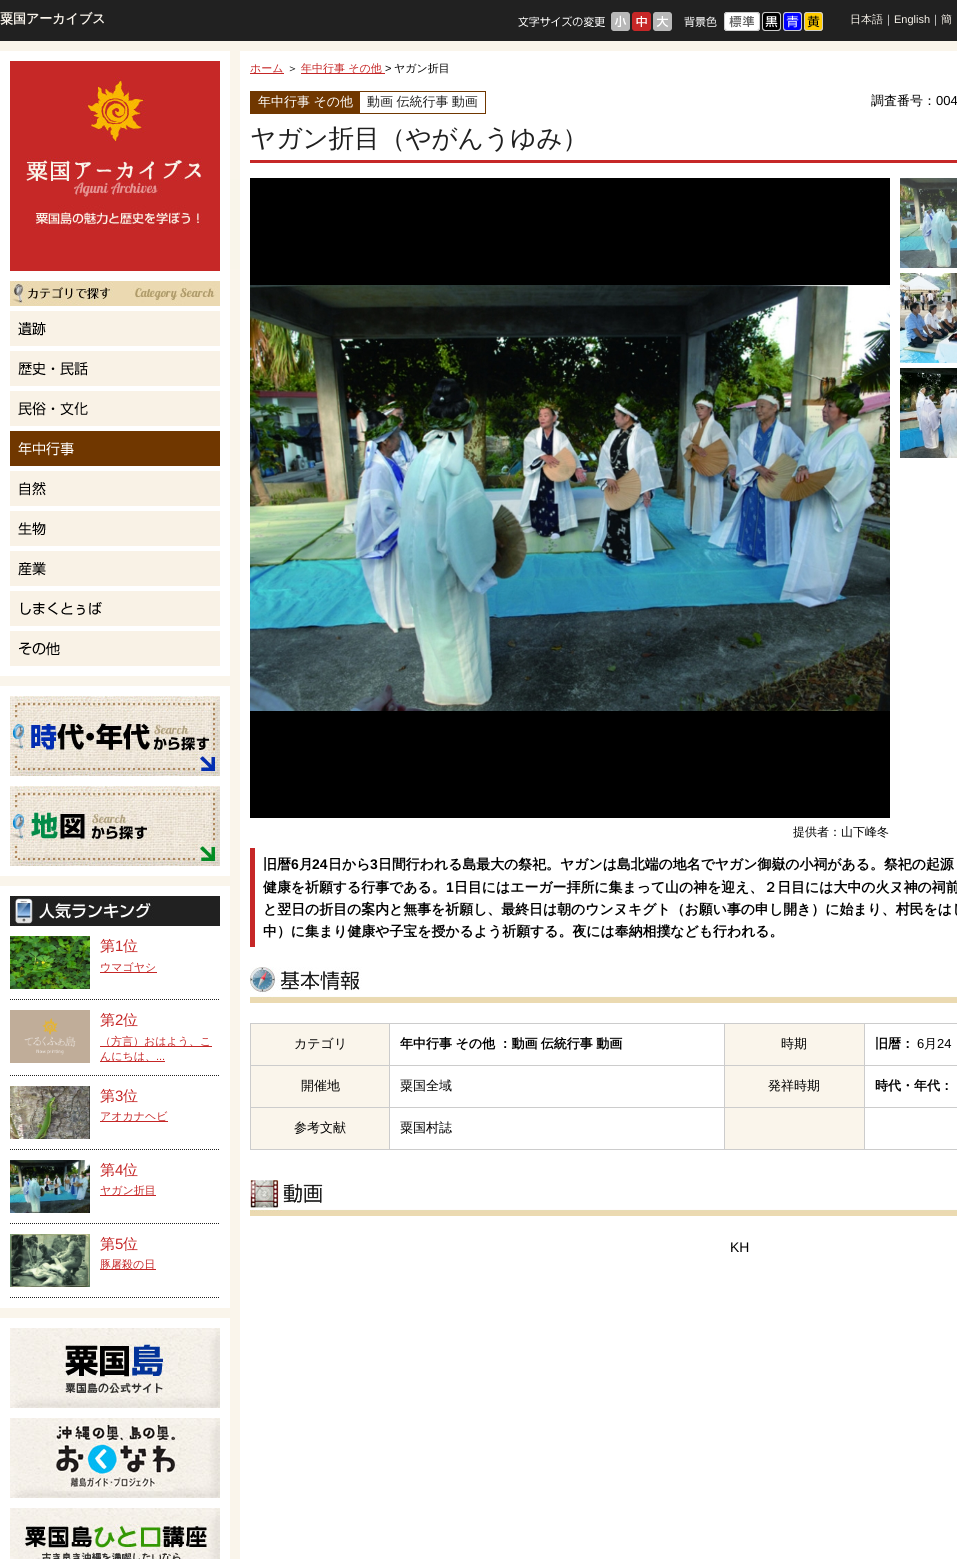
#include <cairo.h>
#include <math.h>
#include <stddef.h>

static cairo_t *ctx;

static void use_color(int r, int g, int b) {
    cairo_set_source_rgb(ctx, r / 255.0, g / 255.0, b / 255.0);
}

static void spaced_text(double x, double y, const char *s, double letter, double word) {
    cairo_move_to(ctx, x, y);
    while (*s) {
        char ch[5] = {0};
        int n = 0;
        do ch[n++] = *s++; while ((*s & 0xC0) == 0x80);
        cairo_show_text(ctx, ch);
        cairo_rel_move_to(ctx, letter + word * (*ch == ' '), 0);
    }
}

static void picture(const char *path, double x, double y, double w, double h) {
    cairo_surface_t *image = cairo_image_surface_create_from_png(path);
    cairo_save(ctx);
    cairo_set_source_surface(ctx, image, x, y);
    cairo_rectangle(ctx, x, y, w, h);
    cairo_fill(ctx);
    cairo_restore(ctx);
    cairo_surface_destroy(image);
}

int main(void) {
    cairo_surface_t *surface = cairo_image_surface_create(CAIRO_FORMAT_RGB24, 957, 1559);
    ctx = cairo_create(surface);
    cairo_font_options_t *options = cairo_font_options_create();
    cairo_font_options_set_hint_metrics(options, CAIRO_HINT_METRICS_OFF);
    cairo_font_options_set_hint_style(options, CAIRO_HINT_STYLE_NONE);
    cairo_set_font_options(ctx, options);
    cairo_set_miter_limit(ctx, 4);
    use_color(250, 245, 235);
    cairo_paint(ctx);
    use_color(33, 33, 33);
    cairo_rectangle(ctx, 0, 0, 957, 41);
    cairo_fill(ctx);
    cairo_select_font_face(ctx, "WenQuanYi Zen Hei", CAIRO_FONT_SLANT_NORMAL, CAIRO_FONT_WEIGHT_BOLD);
    cairo_set_font_size(ctx, 13);
    use_color(249, 244, 235);
    cairo_move_to(ctx, 0, 23);
    cairo_show_text(ctx, "粟国アーカイブス");
    picture("img1.png", 518, 16, 87, 11);
    picture("img2.png", 611, 12, 19, 19);
    picture("img3.png", 632, 12, 19, 19);
    picture("img4.png", 653, 12, 19, 19);
    picture("img5.png", 684, 16, 33, 11);
    picture("img6.png", 724, 12, 36, 19);
    picture("img7.png", 762, 12, 19, 19);
    picture("img8.png", 783, 12, 19, 19);
    picture("img9.png", 804, 12, 19, 19);
    cairo_select_font_face(ctx, "WenQuanYi Zen Hei Medium", CAIRO_FONT_SLANT_NORMAL, CAIRO_FONT_WEIGHT_NORMAL);
    cairo_set_font_size(ctx, 11);
    cairo_move_to(ctx, 850, 23);
    cairo_show_text(ctx, "日本語");
    use_color(255, 255, 255);
    cairo_move_to(ctx, 883, 23);
    cairo_show_text(ctx, "｜");
    cairo_select_font_face(ctx, "Liberation Sans", CAIRO_FONT_SLANT_NORMAL, CAIRO_FONT_WEIGHT_NORMAL);
    use_color(249, 244, 235);
    cairo_move_to(ctx, 894, 23);
    cairo_show_text(ctx, "English");
    cairo_select_font_face(ctx, "WenQuanYi Zen Hei Medium", CAIRO_FONT_SLANT_NORMAL, CAIRO_FONT_WEIGHT_NORMAL);
    use_color(255, 255, 255);
    cairo_move_to(ctx, 930, 23);
    cairo_show_text(ctx, "｜");
    use_color(249, 244, 235);
    cairo_move_to(ctx, 941, 23);
    cairo_show_text(ctx, "簡");
    picture("img10.png", 230, 179, 10, 90);
    use_color(255, 255, 255);
    cairo_rectangle(ctx, 0, 51, 230, 625);
    cairo_fill(ctx);
    picture("img11.png", 10, 61, 210, 210);
    picture("img12.png", 10, 281, 210, 25);
    picture("img13.png", 10, 311, 210, 35);
    picture("img14.png", 10, 351, 210, 35);
    picture("img15.png", 10, 391, 210, 35);
    picture("img16.png", 10, 431, 210, 35);
    picture("img17.png", 10, 471, 210, 35);
    picture("img18.png", 10, 511, 210, 35);
    picture("img19.png", 10, 551, 210, 35);
    picture("img20.png", 10, 591, 210, 35);
    picture("img21.png", 10, 631, 210, 35);
    cairo_rectangle(ctx, 0, 686, 230, 190);
    cairo_fill(ctx);
    picture("img22.png", 10, 696, 210, 80);
    picture("img23.png", 10, 786, 210, 80);
    cairo_rectangle(ctx, 0, 886, 230, 422);
    cairo_fill(ctx);
    picture("img24.png", 10, 896, 210, 30);
    cairo_new_path(ctx);
    cairo_move_to(ctx, 10, 999.5);
    cairo_line_to(ctx, 220, 999.5);
    use_color(33, 33, 33);
    cairo_set_line_width(ctx, 1);
    cairo_set_dash(ctx, (double[]){1, 1}, 2, 0);
    cairo_stroke(ctx);
    picture("img25.png", 10, 936, 80, 53);
    cairo_set_font_size(ctx, 15);
    use_color(197, 38, 38);
    cairo_move_to(ctx, 100, 951);
    cairo_show_text(ctx, "第");
    cairo_select_font_face(ctx, "Liberation Sans", CAIRO_FONT_SLANT_NORMAL, CAIRO_FONT_WEIGHT_NORMAL);
    cairo_move_to(ctx, 115, 951);
    cairo_show_text(ctx, "1");
    cairo_select_font_face(ctx, "WenQuanYi Zen Hei Medium", CAIRO_FONT_SLANT_NORMAL, CAIRO_FONT_WEIGHT_NORMAL);
    cairo_move_to(ctx, 123, 951);
    cairo_show_text(ctx, "位");
    cairo_rectangle(ctx, 100, 972, 57, 1);
    cairo_fill(ctx);
    cairo_set_font_size(ctx, 11);
    cairo_move_to(ctx, 100, 971);
    cairo_show_text(ctx, "ウマゴヤシ");
    cairo_new_path(ctx);
    cairo_move_to(ctx, 10, 1075.5);
    cairo_line_to(ctx, 220, 1075.5);
    use_color(33, 33, 33);
    cairo_stroke(ctx);
    picture("img26.png", 10, 1010, 80, 53);
    cairo_set_font_size(ctx, 15);
    use_color(197, 38, 38);
    cairo_move_to(ctx, 100, 1025);
    cairo_show_text(ctx, "第");
    cairo_select_font_face(ctx, "Liberation Sans", CAIRO_FONT_SLANT_NORMAL, CAIRO_FONT_WEIGHT_NORMAL);
    cairo_move_to(ctx, 115, 1025);
    cairo_show_text(ctx, "2");
    cairo_select_font_face(ctx, "WenQuanYi Zen Hei Medium", CAIRO_FONT_SLANT_NORMAL, CAIRO_FONT_WEIGHT_NORMAL);
    cairo_move_to(ctx, 123, 1025);
    cairo_show_text(ctx, "位");
    cairo_rectangle(ctx, 100, 1046, 112, 1);
    cairo_fill(ctx);
    cairo_set_font_size(ctx, 11);
    cairo_move_to(ctx, 100, 1045);
    cairo_show_text(ctx, "（方言）おはよう、こ");
    cairo_rectangle(ctx, 100, 1061, 65, 1);
    cairo_fill(ctx);
    cairo_move_to(ctx, 100, 1060);
    cairo_show_text(ctx, "んにちは、");
    cairo_select_font_face(ctx, "Liberation Sans", CAIRO_FONT_SLANT_NORMAL, CAIRO_FONT_WEIGHT_NORMAL);
    cairo_move_to(ctx, 156, 1060);
    cairo_show_text(ctx, "...");
    cairo_new_path(ctx);
    cairo_move_to(ctx, 10, 1149.5);
    cairo_line_to(ctx, 220, 1149.5);
    use_color(33, 33, 33);
    cairo_stroke(ctx);
    picture("img27.png", 10, 1086, 80, 53);
    cairo_select_font_face(ctx, "WenQuanYi Zen Hei Medium", CAIRO_FONT_SLANT_NORMAL, CAIRO_FONT_WEIGHT_NORMAL);
    cairo_set_font_size(ctx, 15);
    use_color(197, 38, 38);
    cairo_move_to(ctx, 100, 1101);
    cairo_show_text(ctx, "第");
    cairo_select_font_face(ctx, "Liberation Sans", CAIRO_FONT_SLANT_NORMAL, CAIRO_FONT_WEIGHT_NORMAL);
    cairo_move_to(ctx, 115, 1101);
    cairo_show_text(ctx, "3");
    cairo_select_font_face(ctx, "WenQuanYi Zen Hei Medium", CAIRO_FONT_SLANT_NORMAL, CAIRO_FONT_WEIGHT_NORMAL);
    cairo_move_to(ctx, 123, 1101);
    cairo_show_text(ctx, "位");
    cairo_rectangle(ctx, 100, 1121, 68, 1);
    cairo_fill(ctx);
    cairo_set_font_size(ctx, 11);
    cairo_move_to(ctx, 100, 1120);
    cairo_show_text(ctx, "アオカナヘビ");
    cairo_new_path(ctx);
    cairo_move_to(ctx, 10, 1223.5);
    cairo_line_to(ctx, 220, 1223.5);
    use_color(33, 33, 33);
    cairo_stroke(ctx);
    picture("img28.png", 10, 1160, 80, 53);
    cairo_set_font_size(ctx, 15);
    use_color(197, 38, 38);
    cairo_move_to(ctx, 100, 1175);
    cairo_show_text(ctx, "第");
    cairo_select_font_face(ctx, "Liberation Sans", CAIRO_FONT_SLANT_NORMAL, CAIRO_FONT_WEIGHT_NORMAL);
    cairo_move_to(ctx, 115, 1175);
    cairo_show_text(ctx, "4");
    cairo_select_font_face(ctx, "WenQuanYi Zen Hei Medium", CAIRO_FONT_SLANT_NORMAL, CAIRO_FONT_WEIGHT_NORMAL);
    cairo_move_to(ctx, 123, 1175);
    cairo_show_text(ctx, "位");
    cairo_rectangle(ctx, 100, 1195, 56, 1);
    cairo_fill(ctx);
    cairo_set_font_size(ctx, 11);
    cairo_move_to(ctx, 100, 1194);
    cairo_show_text(ctx, "ヤガン折目");
    cairo_new_path(ctx);
    cairo_move_to(ctx, 10, 1297.5);
    cairo_line_to(ctx, 220, 1297.5);
    use_color(33, 33, 33);
    cairo_stroke(ctx);
    picture("img29.png", 10, 1234, 80, 53);
    cairo_set_font_size(ctx, 15);
    use_color(197, 38, 38);
    cairo_move_to(ctx, 100, 1249);
    cairo_show_text(ctx, "第");
    cairo_select_font_face(ctx, "Liberation Sans", CAIRO_FONT_SLANT_NORMAL, CAIRO_FONT_WEIGHT_NORMAL);
    cairo_move_to(ctx, 115, 1249);
    cairo_show_text(ctx, "5");
    cairo_select_font_face(ctx, "WenQuanYi Zen Hei Medium", CAIRO_FONT_SLANT_NORMAL, CAIRO_FONT_WEIGHT_NORMAL);
    cairo_move_to(ctx, 123, 1249);
    cairo_show_text(ctx, "位");
    cairo_rectangle(ctx, 100, 1269, 56, 1);
    cairo_fill(ctx);
    cairo_set_font_size(ctx, 11);
    cairo_move_to(ctx, 100, 1268);
    cairo_show_text(ctx, "豚屠殺の日");
    use_color(255, 255, 255);
    cairo_rectangle(ctx, 0, 1318, 230, 241);
    cairo_fill(ctx);
    picture("img30.png", 10, 1328, 210, 80);
    picture("img31.png", 10, 1418, 210, 80);
    picture("img32.png", 10, 1508, 210, 51);
    cairo_rectangle(ctx, 240, 51, 717, 1508);
    cairo_fill(ctx);
    use_color(197, 38, 38);
    cairo_rectangle(ctx, 250, 73, 34, 1);
    cairo_fill(ctx);
    cairo_move_to(ctx, 250, 72);
    cairo_show_text(ctx, "ホーム");
    use_color(0, 0, 0);
    cairo_move_to(ctx, 287, 72);
    cairo_show_text(ctx, "＞");
    use_color(197, 38, 38);
    cairo_rectangle(ctx, 301, 73, 84, 1);
    cairo_fill(ctx);
    cairo_move_to(ctx, 301, 72);
    cairo_show_text(ctx, "年中行事 その他");
    cairo_select_font_face(ctx, "Liberation Sans", CAIRO_FONT_SLANT_NORMAL, CAIRO_FONT_WEIGHT_NORMAL);
    use_color(0, 0, 0);
    cairo_move_to(ctx, 385, 72);
    cairo_show_text(ctx, ">");
    cairo_select_font_face(ctx, "WenQuanYi Zen Hei Medium", CAIRO_FONT_SLANT_NORMAL, CAIRO_FONT_WEIGHT_NORMAL);
    cairo_move_to(ctx, 394, 72);
    cairo_show_text(ctx, "ヤガン折目");
    cairo_rectangle(ctx, 250.5, 91.5, 235, 22);
    use_color(112, 55, 0);
    cairo_set_dash(ctx, NULL, 0, 0);
    cairo_stroke(ctx);
    cairo_rectangle(ctx, 251, 92, 109, 21);
    cairo_fill(ctx);
    cairo_set_font_size(ctx, 13);
    use_color(255, 255, 255);
    spaced_text(258, 106, "年中行事 その他", 0, -0.5);
    use_color(31, 31, 31);
    spaced_text(367, 106, "動画 伝統行事 動画", 0, -0.5);
    use_color(0, 0, 0);
    cairo_move_to(ctx, 871, 105);
    cairo_show_text(ctx, "調査番号：");
    cairo_select_font_face(ctx, "Liberation Sans", CAIRO_FONT_SLANT_NORMAL, CAIRO_FONT_WEIGHT_NORMAL);
    cairo_move_to(ctx, 936, 105);
    cairo_show_text(ctx, "004");
    use_color(198, 39, 39);
    cairo_rectangle(ctx, 250, 160, 707, 3);
    cairo_fill(ctx);
    cairo_select_font_face(ctx, "WenQuanYi Zen Hei Medium", CAIRO_FONT_SLANT_NORMAL, CAIRO_FONT_WEIGHT_NORMAL);
    cairo_set_font_size(ctx, 25.6);
    use_color(31, 31, 31);
    cairo_move_to(ctx, 250, 147);
    cairo_show_text(ctx, "ヤガン折目（やがんうゆみ）");
    picture("img33.png", 900, 178, 57, 90);
    picture("img34.png", 900, 273, 57, 90);
    picture("img35.png", 900, 368, 57, 90);
    use_color(0, 0, 0);
    cairo_rectangle(ctx, 250, 178, 640, 640);
    cairo_fill(ctx);
    picture("img36.png", 250, 285, 640, 426);
    cairo_set_font_size(ctx, 12);
    cairo_move_to(ctx, 793, 836);
    cairo_show_text(ctx, "提供者：山下峰冬");
    use_color(198, 39, 39);
    cairo_rectangle(ctx, 250, 848, 5, 99);
    cairo_fill(ctx);
    cairo_select_font_face(ctx, "WenQuanYi Zen Hei", CAIRO_FONT_SLANT_NORMAL, CAIRO_FONT_WEIGHT_BOLD);
    cairo_set_font_size(ctx, 13.9);
    use_color(0, 0, 0);
    cairo_move_to(ctx, 263, 869);
    cairo_show_text(ctx, "旧暦");
    cairo_select_font_face(ctx, "Liberation Sans", CAIRO_FONT_SLANT_NORMAL, CAIRO_FONT_WEIGHT_BOLD);
    cairo_move_to(ctx, 291, 869);
    cairo_show_text(ctx, "6");
    cairo_select_font_face(ctx, "WenQuanYi Zen Hei", CAIRO_FONT_SLANT_NORMAL, CAIRO_FONT_WEIGHT_BOLD);
    cairo_move_to(ctx, 299, 869);
    cairo_show_text(ctx, "月");
    cairo_select_font_face(ctx, "Liberation Sans", CAIRO_FONT_SLANT_NORMAL, CAIRO_FONT_WEIGHT_BOLD);
    cairo_move_to(ctx, 312, 869);
    cairo_show_text(ctx, "24");
    cairo_select_font_face(ctx, "WenQuanYi Zen Hei", CAIRO_FONT_SLANT_NORMAL, CAIRO_FONT_WEIGHT_BOLD);
    cairo_move_to(ctx, 328, 869);
    cairo_show_text(ctx, "日から");
    cairo_select_font_face(ctx, "Liberation Sans", CAIRO_FONT_SLANT_NORMAL, CAIRO_FONT_WEIGHT_BOLD);
    cairo_move_to(ctx, 370, 869);
    cairo_show_text(ctx, "3");
    cairo_select_font_face(ctx, "WenQuanYi Zen Hei", CAIRO_FONT_SLANT_NORMAL, CAIRO_FONT_WEIGHT_BOLD);
    cairo_move_to(ctx, 378, 869);
    cairo_show_text(ctx, "日間行われる島最大の祭祀。ヤガンは島北端の地名でヤガン御嶽の小祠がある。祭祀の起源");
    cairo_move_to(ctx, 263, 892);
    cairo_show_text(ctx, "健康を祈願する行事である。");
    cairo_select_font_face(ctx, "Liberation Sans", CAIRO_FONT_SLANT_NORMAL, CAIRO_FONT_WEIGHT_BOLD);
    cairo_move_to(ctx, 446, 892);
    cairo_show_text(ctx, "1");
    cairo_select_font_face(ctx, "WenQuanYi Zen Hei", CAIRO_FONT_SLANT_NORMAL, CAIRO_FONT_WEIGHT_BOLD);
    cairo_move_to(ctx, 454, 892);
    cairo_show_text(ctx, "日目にはエーガー拝所に集まって山の神を迎え、２日目には大中の火ヌ神の祠前");
    cairo_move_to(ctx, 263, 914);
    cairo_show_text(ctx, "と翌日の折目の案内と無事を祈願し、最終日は朝のウンヌキグト（お願い事の申し開き）に始まり、村民をはじ");
    cairo_move_to(ctx, 263, 936);
    cairo_show_text(ctx, "中）に集まり健康や子宝を授かるよう祈願する。夜には奉納相撲なども行われる。");
    use_color(235, 218, 177);
    cairo_rectangle(ctx, 250, 1000, 707, 3);
    cairo_fill(ctx);
    picture("img37.png", 250, 967, 707, 33);
    use_color(250, 245, 235);
    cairo_rectangle(ctx, 251, 1024, 138, 41);
    cairo_fill(ctx);
    use_color(204, 204, 204);
    cairo_rectangle(ctx, 864, 1023, 93, 1);
    cairo_fill(ctx);
    cairo_rectangle(ctx, 864, 1065, 93, 1);
    cairo_fill(ctx);
    cairo_rectangle(ctx, 864, 1107, 93, 1);
    cairo_fill(ctx);
    cairo_rectangle(ctx, 864, 1149, 93, 1);
    cairo_fill(ctx);
    cairo_rectangle(ctx, 864, 1107, 1, 43);
    cairo_fill(ctx);
    cairo_rectangle(ctx, 724, 1107, 141, 1);
    cairo_fill(ctx);
    cairo_rectangle(ctx, 864, 1065, 1, 43);
    cairo_fill(ctx);
    cairo_rectangle(ctx, 724, 1065, 141, 1);
    cairo_fill(ctx);
    cairo_rectangle(ctx, 864, 1023, 1, 43);
    cairo_fill(ctx);
    cairo_rectangle(ctx, 724, 1023, 141, 1);
    cairo_fill(ctx);
    cairo_rectangle(ctx, 724, 1149, 141, 1);
    cairo_fill(ctx);
    cairo_rectangle(ctx, 724, 1107, 1, 43);
    cairo_fill(ctx);
    cairo_rectangle(ctx, 389, 1107, 336, 1);
    cairo_fill(ctx);
    cairo_rectangle(ctx, 724, 1065, 1, 43);
    cairo_fill(ctx);
    cairo_rectangle(ctx, 389, 1065, 336, 1);
    cairo_fill(ctx);
    cairo_rectangle(ctx, 724, 1023, 1, 43);
    cairo_fill(ctx);
    cairo_rectangle(ctx, 389, 1023, 336, 1);
    cairo_fill(ctx);
    cairo_rectangle(ctx, 389, 1149, 336, 1);
    cairo_fill(ctx);
    cairo_rectangle(ctx, 389, 1107, 1, 43);
    cairo_fill(ctx);
    cairo_rectangle(ctx, 250, 1107, 140, 1);
    cairo_fill(ctx);
    cairo_rectangle(ctx, 389, 1065, 1, 43);
    cairo_fill(ctx);
    cairo_rectangle(ctx, 250, 1065, 140, 1);
    cairo_fill(ctx);
    cairo_rectangle(ctx, 389, 1023, 1, 43);
    cairo_fill(ctx);
    cairo_rectangle(ctx, 250, 1023, 140, 1);
    cairo_fill(ctx);
    cairo_rectangle(ctx, 250, 1149, 140, 1);
    cairo_fill(ctx);
    cairo_rectangle(ctx, 250, 1107, 1, 43);
    cairo_fill(ctx);
    cairo_rectangle(ctx, 250, 1065, 1, 43);
    cairo_fill(ctx);
    cairo_rectangle(ctx, 250, 1023, 1, 43);
    cairo_fill(ctx);
    cairo_select_font_face(ctx, "WenQuanYi Zen Hei Medium", CAIRO_FONT_SLANT_NORMAL, CAIRO_FONT_WEIGHT_NORMAL);
    cairo_set_font_size(ctx, 13);
    use_color(0, 0, 0);
    cairo_move_to(ctx, 294, 1048);
    cairo_show_text(ctx, "カテゴリ");
    cairo_select_font_face(ctx, "WenQuanYi Zen Hei", CAIRO_FONT_SLANT_NORMAL, CAIRO_FONT_WEIGHT_BOLD);
    spaced_text(400, 1048, "年中行事 その他 ：動画 伝統行事 動画", 0, -0.5);
    use_color(250, 245, 235);
    cairo_rectangle(ctx, 725, 1024, 139, 41);
    cairo_fill(ctx);
    cairo_select_font_face(ctx, "WenQuanYi Zen Hei Medium", CAIRO_FONT_SLANT_NORMAL, CAIRO_FONT_WEIGHT_NORMAL);
    use_color(0, 0, 0);
    cairo_move_to(ctx, 781, 1048);
    cairo_show_text(ctx, "時期");
    cairo_select_font_face(ctx, "WenQuanYi Zen Hei", CAIRO_FONT_SLANT_NORMAL, CAIRO_FONT_WEIGHT_BOLD);
    cairo_move_to(ctx, 875, 1048);
    cairo_show_text(ctx, "旧暦：");
    cairo_select_font_face(ctx, "Liberation Sans", CAIRO_FONT_SLANT_NORMAL, CAIRO_FONT_WEIGHT_NORMAL);
    cairo_move_to(ctx, 917, 1048);
    cairo_show_text(ctx, "6");
    cairo_select_font_face(ctx, "WenQuanYi Zen Hei Medium", CAIRO_FONT_SLANT_NORMAL, CAIRO_FONT_WEIGHT_NORMAL);
    cairo_move_to(ctx, 924, 1048);
    cairo_show_text(ctx, "月");
    cairo_select_font_face(ctx, "Liberation Sans", CAIRO_FONT_SLANT_NORMAL, CAIRO_FONT_WEIGHT_NORMAL);
    cairo_move_to(ctx, 937, 1048);
    cairo_show_text(ctx, "24");
    use_color(250, 245, 235);
    cairo_rectangle(ctx, 251, 1066, 138, 41);
    cairo_fill(ctx);
    cairo_select_font_face(ctx, "WenQuanYi Zen Hei Medium", CAIRO_FONT_SLANT_NORMAL, CAIRO_FONT_WEIGHT_NORMAL);
    use_color(0, 0, 0);
    cairo_move_to(ctx, 301, 1090);
    cairo_show_text(ctx, "開催地");
    cairo_move_to(ctx, 400, 1090);
    cairo_show_text(ctx, "粟国全域");
    use_color(250, 245, 235);
    cairo_rectangle(ctx, 725, 1066, 139, 41);
    cairo_fill(ctx);
    use_color(0, 0, 0);
    cairo_move_to(ctx, 768, 1090);
    cairo_show_text(ctx, "発祥時期");
    cairo_select_font_face(ctx, "WenQuanYi Zen Hei", CAIRO_FONT_SLANT_NORMAL, CAIRO_FONT_WEIGHT_BOLD);
    cairo_move_to(ctx, 875, 1090);
    cairo_show_text(ctx, "時代・年代：");
    use_color(250, 245, 235);
    cairo_rectangle(ctx, 251, 1108, 138, 41);
    cairo_fill(ctx);
    cairo_select_font_face(ctx, "WenQuanYi Zen Hei Medium", CAIRO_FONT_SLANT_NORMAL, CAIRO_FONT_WEIGHT_NORMAL);
    use_color(0, 0, 0);
    cairo_move_to(ctx, 294, 1132);
    cairo_show_text(ctx, "参考文献");
    cairo_move_to(ctx, 400, 1132);
    cairo_show_text(ctx, "粟国村誌");
    use_color(250, 245, 235);
    cairo_rectangle(ctx, 725, 1108, 139, 41);
    cairo_fill(ctx);
    use_color(235, 218, 177);
    cairo_rectangle(ctx, 250, 1213, 707, 3);
    cairo_fill(ctx);
    picture("img38.png", 250, 1180, 707, 33);
    cairo_select_font_face(ctx, "Liberation Sans", CAIRO_FONT_SLANT_NORMAL, CAIRO_FONT_WEIGHT_NORMAL);
    cairo_set_font_size(ctx, 13.9);
    use_color(0, 0, 0);
    cairo_move_to(ctx, 730, 1252);
    cairo_show_text(ctx, "KH");
    cairo_surface_write_to_png(surface, "result.png");
    cairo_font_options_destroy(options);
    cairo_destroy(ctx);
    cairo_surface_destroy(surface);
    return 0;
}
